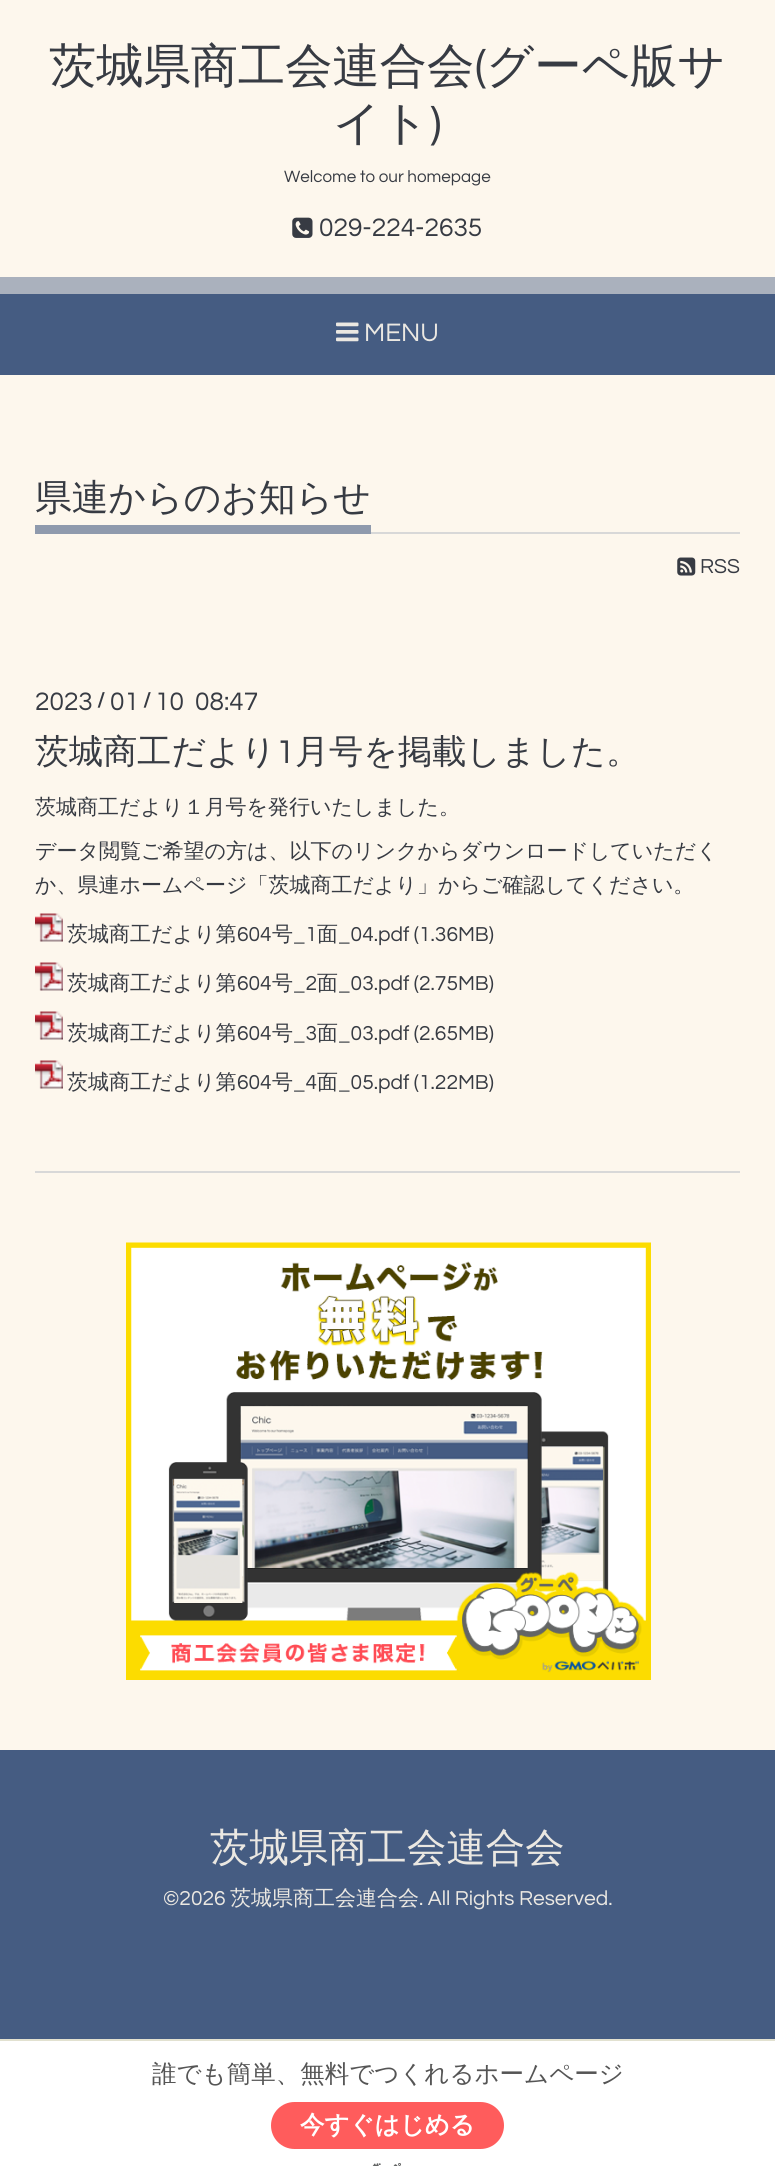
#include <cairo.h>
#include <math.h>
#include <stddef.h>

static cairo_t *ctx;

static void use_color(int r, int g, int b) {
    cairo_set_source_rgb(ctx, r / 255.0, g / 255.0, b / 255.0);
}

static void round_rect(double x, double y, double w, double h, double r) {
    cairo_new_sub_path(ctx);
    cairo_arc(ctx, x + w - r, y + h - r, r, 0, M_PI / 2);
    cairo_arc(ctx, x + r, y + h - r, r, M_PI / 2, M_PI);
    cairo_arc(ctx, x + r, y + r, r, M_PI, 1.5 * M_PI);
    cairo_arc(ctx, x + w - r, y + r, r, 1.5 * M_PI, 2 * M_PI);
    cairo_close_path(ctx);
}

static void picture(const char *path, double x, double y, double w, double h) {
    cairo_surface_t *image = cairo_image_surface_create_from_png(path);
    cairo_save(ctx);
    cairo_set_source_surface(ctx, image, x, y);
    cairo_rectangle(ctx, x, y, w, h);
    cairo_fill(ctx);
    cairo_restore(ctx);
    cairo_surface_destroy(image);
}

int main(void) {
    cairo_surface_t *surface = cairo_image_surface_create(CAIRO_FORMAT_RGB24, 775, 2166);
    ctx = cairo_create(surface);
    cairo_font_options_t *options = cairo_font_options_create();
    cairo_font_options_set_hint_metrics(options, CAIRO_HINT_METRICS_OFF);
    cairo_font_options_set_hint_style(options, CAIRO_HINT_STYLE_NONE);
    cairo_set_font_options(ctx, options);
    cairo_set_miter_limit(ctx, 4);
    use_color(253, 247, 237);
    cairo_paint(ctx);
    cairo_select_font_face(ctx, "WenQuanYi Zen Hei Medium", CAIRO_FONT_SLANT_NORMAL, CAIRO_FONT_WEIGHT_NORMAL);
    cairo_set_font_size(ctx, 47.25);
    use_color(55, 59, 67);
    cairo_move_to(ctx, 49, 82);
    cairo_show_text(ctx, "茨城県商工会連合会");
    cairo_select_font_face(ctx, "Questrial", CAIRO_FONT_SLANT_NORMAL, CAIRO_FONT_WEIGHT_NORMAL);
    cairo_move_to(ctx, 475, 82);
    cairo_show_text(ctx, "(");
    cairo_select_font_face(ctx, "WenQuanYi Zen Hei Medium", CAIRO_FONT_SLANT_NORMAL, CAIRO_FONT_WEIGHT_NORMAL);
    cairo_move_to(ctx, 486, 82);
    cairo_show_text(ctx, "グーペ版サ");
    cairo_move_to(ctx, 333, 139);
    cairo_show_text(ctx, "イト");
    cairo_select_font_face(ctx, "Questrial", CAIRO_FONT_SLANT_NORMAL, CAIRO_FONT_WEIGHT_NORMAL);
    cairo_move_to(ctx, 430, 139);
    cairo_show_text(ctx, ")");
    cairo_set_font_size(ctx, 17);
    cairo_move_to(ctx, 284, 182);
    cairo_show_text(ctx, "Welcome to our homepage");
    picture("img1.png", 292, 217, 21, 21);
    cairo_set_font_size(ctx, 26.25);
    cairo_move_to(ctx, 319, 236);
    cairo_show_text(ctx, "029-224-2635");
    use_color(170, 177, 189);
    cairo_rectangle(ctx, 0, 277, 775, 17);
    cairo_fill(ctx);
    use_color(69, 92, 130);
    cairo_rectangle(ctx, 0, 294, 775, 81);
    cairo_fill(ctx);
    picture("img2.png", 336, 322, 23, 20);
    use_color(235, 232, 226);
    cairo_move_to(ctx, 364, 341);
    cairo_show_text(ctx, "MENU");
    use_color(216, 216, 216);
    cairo_rectangle(ctx, 371, 532, 369, 2);
    cairo_fill(ctx);
    use_color(143, 154, 173);
    cairo_rectangle(ctx, 35, 525, 336, 9);
    cairo_fill(ctx);
    cairo_select_font_face(ctx, "WenQuanYi Zen Hei Medium", CAIRO_FONT_SLANT_NORMAL, CAIRO_FONT_WEIGHT_NORMAL);
    cairo_set_font_size(ctx, 36.75);
    use_color(55, 59, 67);
    cairo_move_to(ctx, 35, 510);
    cairo_show_text(ctx, "県連からのお知らせ");
    picture("img3.png", 677, 557, 19, 19);
    cairo_select_font_face(ctx, "Questrial", CAIRO_FONT_SLANT_NORMAL, CAIRO_FONT_WEIGHT_NORMAL);
    cairo_set_font_size(ctx, 21);
    cairo_move_to(ctx, 700, 573);
    cairo_show_text(ctx, "RSS");
    cairo_set_font_size(ctx, 26.25);
    cairo_move_to(ctx, 35, 710);
    cairo_show_text(ctx, "2023");
    cairo_select_font_face(ctx, "Questrial", CAIRO_FONT_SLANT_NORMAL, CAIRO_FONT_WEIGHT_BOLD);
    cairo_set_font_size(ctx, 21);
    cairo_move_to(ctx, 97, 707);
    cairo_show_text(ctx, "/");
    cairo_select_font_face(ctx, "Questrial", CAIRO_FONT_SLANT_NORMAL, CAIRO_FONT_WEIGHT_NORMAL);
    cairo_set_font_size(ctx, 26.25);
    cairo_move_to(ctx, 110, 710);
    cairo_show_text(ctx, "01");
    cairo_select_font_face(ctx, "Questrial", CAIRO_FONT_SLANT_NORMAL, CAIRO_FONT_WEIGHT_BOLD);
    cairo_set_font_size(ctx, 21);
    cairo_move_to(ctx, 143, 707);
    cairo_show_text(ctx, "/");
    cairo_select_font_face(ctx, "Questrial", CAIRO_FONT_SLANT_NORMAL, CAIRO_FONT_WEIGHT_NORMAL);
    cairo_set_font_size(ctx, 26.25);
    cairo_move_to(ctx, 155, 710);
    cairo_show_text(ctx, "10  08:47");
    cairo_select_font_face(ctx, "WenQuanYi Zen Hei Medium", CAIRO_FONT_SLANT_NORMAL, CAIRO_FONT_WEIGHT_NORMAL);
    cairo_set_font_size(ctx, 34.1);
    cairo_move_to(ctx, 35, 763);
    cairo_show_text(ctx, "茨城商工だより");
    cairo_select_font_face(ctx, "Questrial", CAIRO_FONT_SLANT_NORMAL, CAIRO_FONT_WEIGHT_NORMAL);
    cairo_move_to(ctx, 276, 763);
    cairo_show_text(ctx, "1");
    cairo_select_font_face(ctx, "WenQuanYi Zen Hei Medium", CAIRO_FONT_SLANT_NORMAL, CAIRO_FONT_WEIGHT_NORMAL);
    cairo_move_to(ctx, 295, 763);
    cairo_show_text(ctx, "月号を掲載しました。");
    cairo_set_font_size(ctx, 21);
    cairo_move_to(ctx, 35, 814);
    cairo_show_text(ctx, "茨城商工だより１月号を発行いたしました。");
    cairo_move_to(ctx, 35, 858);
    cairo_show_text(ctx, "データ閲覧ご希望の方は、以下のリンクからダウンロードしていただく");
    cairo_move_to(ctx, 35, 892);
    cairo_show_text(ctx, "か、県連ホームページ「茨城商工だより」からご確認してください。");
    picture("img4.png", 35, 913, 28, 29);
    cairo_move_to(ctx, 67, 941);
    cairo_show_text(ctx, "茨城商工だより第");
    cairo_select_font_face(ctx, "Questrial", CAIRO_FONT_SLANT_NORMAL, CAIRO_FONT_WEIGHT_NORMAL);
    cairo_move_to(ctx, 237, 941);
    cairo_show_text(ctx, "604");
    cairo_select_font_face(ctx, "WenQuanYi Zen Hei Medium", CAIRO_FONT_SLANT_NORMAL, CAIRO_FONT_WEIGHT_NORMAL);
    cairo_move_to(ctx, 272, 941);
    cairo_show_text(ctx, "号");
    cairo_select_font_face(ctx, "Questrial", CAIRO_FONT_SLANT_NORMAL, CAIRO_FONT_WEIGHT_NORMAL);
    cairo_move_to(ctx, 293, 941);
    cairo_show_text(ctx, "_1");
    cairo_select_font_face(ctx, "WenQuanYi Zen Hei Medium", CAIRO_FONT_SLANT_NORMAL, CAIRO_FONT_WEIGHT_NORMAL);
    cairo_move_to(ctx, 317, 941);
    cairo_show_text(ctx, "面");
    cairo_select_font_face(ctx, "Questrial", CAIRO_FONT_SLANT_NORMAL, CAIRO_FONT_WEIGHT_NORMAL);
    cairo_move_to(ctx, 338, 941);
    cairo_show_text(ctx, "_04.pdf (1.36MB)");
    picture("img4.png", 35, 962, 28, 29);
    cairo_select_font_face(ctx, "WenQuanYi Zen Hei Medium", CAIRO_FONT_SLANT_NORMAL, CAIRO_FONT_WEIGHT_NORMAL);
    cairo_move_to(ctx, 67, 990);
    cairo_show_text(ctx, "茨城商工だより第");
    cairo_select_font_face(ctx, "Questrial", CAIRO_FONT_SLANT_NORMAL, CAIRO_FONT_WEIGHT_NORMAL);
    cairo_move_to(ctx, 237, 990);
    cairo_show_text(ctx, "604");
    cairo_select_font_face(ctx, "WenQuanYi Zen Hei Medium", CAIRO_FONT_SLANT_NORMAL, CAIRO_FONT_WEIGHT_NORMAL);
    cairo_move_to(ctx, 272, 990);
    cairo_show_text(ctx, "号");
    cairo_select_font_face(ctx, "Questrial", CAIRO_FONT_SLANT_NORMAL, CAIRO_FONT_WEIGHT_NORMAL);
    cairo_move_to(ctx, 293, 990);
    cairo_show_text(ctx, "_2");
    cairo_select_font_face(ctx, "WenQuanYi Zen Hei Medium", CAIRO_FONT_SLANT_NORMAL, CAIRO_FONT_WEIGHT_NORMAL);
    cairo_move_to(ctx, 317, 990);
    cairo_show_text(ctx, "面");
    cairo_select_font_face(ctx, "Questrial", CAIRO_FONT_SLANT_NORMAL, CAIRO_FONT_WEIGHT_NORMAL);
    cairo_move_to(ctx, 338, 990);
    cairo_show_text(ctx, "_03.pdf (2.75MB)");
    picture("img4.png", 35, 1011, 28, 29);
    cairo_select_font_face(ctx, "WenQuanYi Zen Hei Medium", CAIRO_FONT_SLANT_NORMAL, CAIRO_FONT_WEIGHT_NORMAL);
    cairo_move_to(ctx, 67, 1040);
    cairo_show_text(ctx, "茨城商工だより第");
    cairo_select_font_face(ctx, "Questrial", CAIRO_FONT_SLANT_NORMAL, CAIRO_FONT_WEIGHT_NORMAL);
    cairo_move_to(ctx, 237, 1040);
    cairo_show_text(ctx, "604");
    cairo_select_font_face(ctx, "WenQuanYi Zen Hei Medium", CAIRO_FONT_SLANT_NORMAL, CAIRO_FONT_WEIGHT_NORMAL);
    cairo_move_to(ctx, 272, 1040);
    cairo_show_text(ctx, "号");
    cairo_select_font_face(ctx, "Questrial", CAIRO_FONT_SLANT_NORMAL, CAIRO_FONT_WEIGHT_NORMAL);
    cairo_move_to(ctx, 293, 1040);
    cairo_show_text(ctx, "_3");
    cairo_select_font_face(ctx, "WenQuanYi Zen Hei Medium", CAIRO_FONT_SLANT_NORMAL, CAIRO_FONT_WEIGHT_NORMAL);
    cairo_move_to(ctx, 317, 1040);
    cairo_show_text(ctx, "面");
    cairo_select_font_face(ctx, "Questrial", CAIRO_FONT_SLANT_NORMAL, CAIRO_FONT_WEIGHT_NORMAL);
    cairo_move_to(ctx, 338, 1040);
    cairo_show_text(ctx, "_03.pdf (2.65MB)");
    picture("img4.png", 35, 1060, 28, 29);
    cairo_select_font_face(ctx, "WenQuanYi Zen Hei Medium", CAIRO_FONT_SLANT_NORMAL, CAIRO_FONT_WEIGHT_NORMAL);
    cairo_move_to(ctx, 67, 1089);
    cairo_show_text(ctx, "茨城商工だより第");
    cairo_select_font_face(ctx, "Questrial", CAIRO_FONT_SLANT_NORMAL, CAIRO_FONT_WEIGHT_NORMAL);
    cairo_move_to(ctx, 237, 1089);
    cairo_show_text(ctx, "604");
    cairo_select_font_face(ctx, "WenQuanYi Zen Hei Medium", CAIRO_FONT_SLANT_NORMAL, CAIRO_FONT_WEIGHT_NORMAL);
    cairo_move_to(ctx, 272, 1089);
    cairo_show_text(ctx, "号");
    cairo_select_font_face(ctx, "Questrial", CAIRO_FONT_SLANT_NORMAL, CAIRO_FONT_WEIGHT_NORMAL);
    cairo_move_to(ctx, 293, 1089);
    cairo_show_text(ctx, "_4");
    cairo_select_font_face(ctx, "WenQuanYi Zen Hei Medium", CAIRO_FONT_SLANT_NORMAL, CAIRO_FONT_WEIGHT_NORMAL);
    cairo_move_to(ctx, 317, 1089);
    cairo_show_text(ctx, "面");
    cairo_select_font_face(ctx, "Questrial", CAIRO_FONT_SLANT_NORMAL, CAIRO_FONT_WEIGHT_NORMAL);
    cairo_move_to(ctx, 338, 1089);
    cairo_show_text(ctx, "_05.pdf (1.22MB)");
    use_color(216, 216, 216);
    cairo_rectangle(ctx, 35, 1171, 705, 2);
    cairo_fill(ctx);
    picture("img5.png", 126, 1242, 525, 438);
    use_color(69, 92, 130);
    cairo_rectangle(ctx, 0, 1750, 775, 289);
    cairo_fill(ctx);
    cairo_select_font_face(ctx, "WenQuanYi Zen Hei Medium", CAIRO_FONT_SLANT_NORMAL, CAIRO_FONT_WEIGHT_NORMAL);
    cairo_set_font_size(ctx, 39.4);
    use_color(235, 232, 226);
    cairo_move_to(ctx, 210, 1861);
    cairo_show_text(ctx, "茨城県商工会連合会");
    cairo_select_font_face(ctx, "Questrial", CAIRO_FONT_SLANT_NORMAL, CAIRO_FONT_WEIGHT_NORMAL);
    cairo_set_font_size(ctx, 21);
    cairo_move_to(ctx, 163, 1905);
    cairo_show_text(ctx, "©2026");
    cairo_select_font_face(ctx, "WenQuanYi Zen Hei Medium", CAIRO_FONT_SLANT_NORMAL, CAIRO_FONT_WEIGHT_NORMAL);
    cairo_move_to(ctx, 230, 1905);
    cairo_show_text(ctx, "茨城県商工会連合会");
    cairo_select_font_face(ctx, "Questrial", CAIRO_FONT_SLANT_NORMAL, CAIRO_FONT_WEIGHT_NORMAL);
    cairo_move_to(ctx, 419, 1905);
    cairo_show_text(ctx, ". All Rights Reserved.");
    use_color(255, 255, 255);
    cairo_rectangle(ctx, 0, 2041, 775, 125);
    cairo_fill(ctx);
    use_color(226, 225, 208);
    cairo_rectangle(ctx, 0, 2039, 775, 2);
    cairo_fill(ctx);
    cairo_select_font_face(ctx, "WenQuanYi Zen Hei Medium", CAIRO_FONT_SLANT_NORMAL, CAIRO_FONT_WEIGHT_NORMAL);
    cairo_set_font_size(ctx, 24.5);
    use_color(85, 85, 85);
    cairo_move_to(ctx, 152, 2082);
    cairo_show_text(ctx, "誰でも簡単、無料でつくれるホームページ");
    use_color(255, 92, 92);
    round_rect(271, 2102, 233, 47, 23.5);
    cairo_fill(ctx);
    cairo_select_font_face(ctx, "WenQuanYi Zen Hei", CAIRO_FONT_SLANT_NORMAL, CAIRO_FONT_WEIGHT_BOLD);
    use_color(255, 255, 255);
    cairo_move_to(ctx, 300, 2133);
    cairo_show_text(ctx, "今すぐはじめる");
    picture("img6.png", 372, 2163, 29, 3);
    cairo_surface_write_to_png(surface, "result.png");
    cairo_font_options_destroy(options);
    cairo_destroy(ctx);
    cairo_surface_destroy(surface);
    return 0;
}
